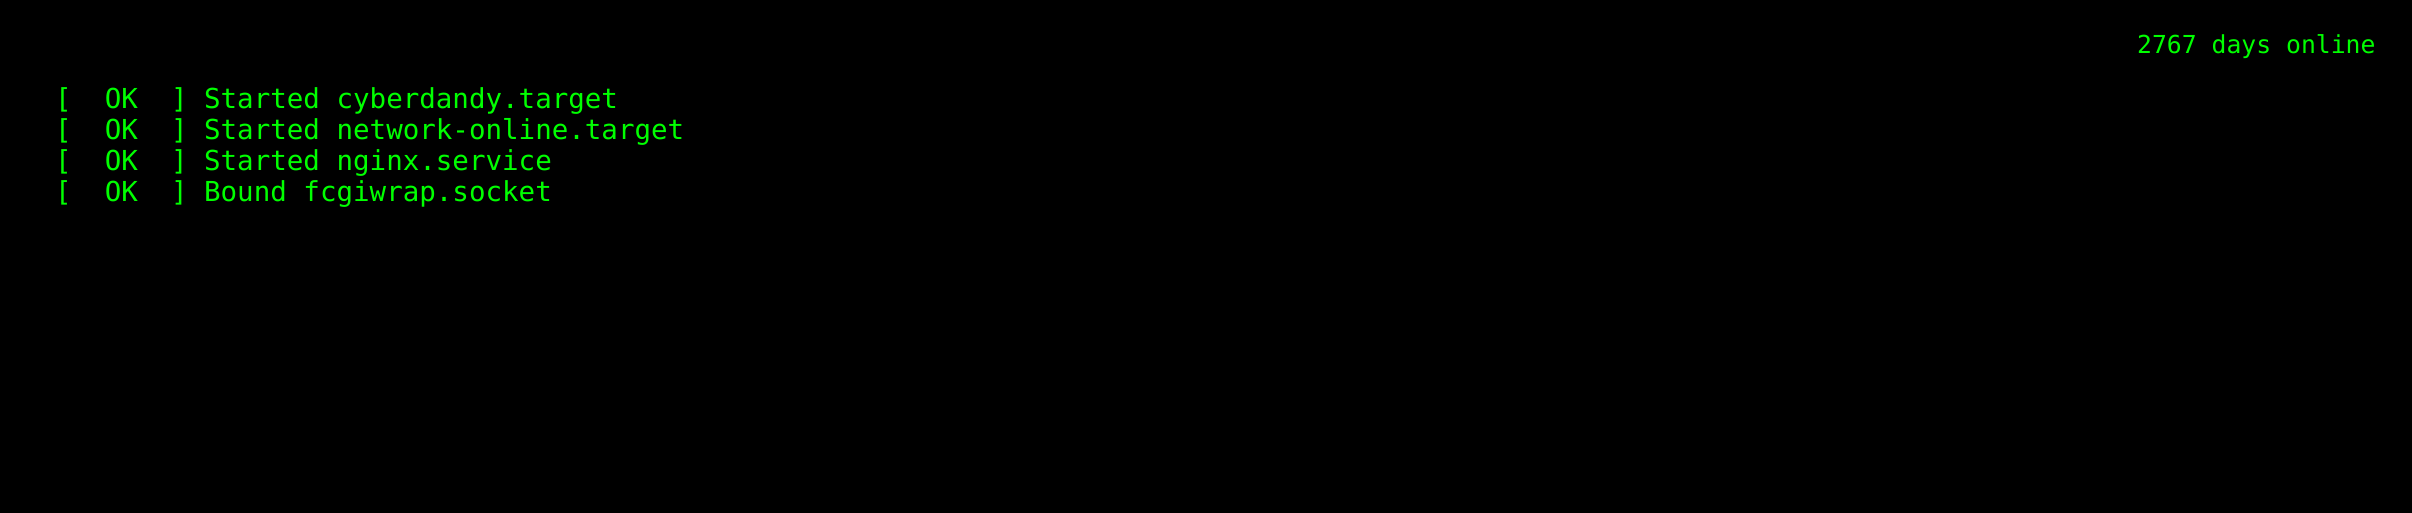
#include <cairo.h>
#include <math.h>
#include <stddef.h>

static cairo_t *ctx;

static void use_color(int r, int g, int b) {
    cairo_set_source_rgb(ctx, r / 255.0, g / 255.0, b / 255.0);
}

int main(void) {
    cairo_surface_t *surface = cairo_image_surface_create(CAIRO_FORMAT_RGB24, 2412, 513);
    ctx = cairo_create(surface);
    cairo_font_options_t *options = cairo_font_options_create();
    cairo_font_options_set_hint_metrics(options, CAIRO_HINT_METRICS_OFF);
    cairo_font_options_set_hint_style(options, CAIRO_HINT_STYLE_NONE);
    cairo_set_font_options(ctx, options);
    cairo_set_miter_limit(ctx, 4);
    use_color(0, 0, 0);
    cairo_paint(ctx);
    cairo_select_font_face(ctx, "DejaVu Sans Mono", CAIRO_FONT_SLANT_NORMAL, CAIRO_FONT_WEIGHT_NORMAL);
    cairo_set_font_size(ctx, 24.75);
    use_color(0, 255, 0);
    cairo_move_to(ctx, 2137, 53);
    cairo_show_text(ctx, "2767 days online");
    cairo_set_font_size(ctx, 27.5);
    cairo_move_to(ctx, 55, 108);
    cairo_show_text(ctx, "[  OK  ] Started cyberdandy.target");
    cairo_move_to(ctx, 55, 139);
    cairo_show_text(ctx, "[  OK  ] Started network-online.target");
    cairo_move_to(ctx, 55, 170);
    cairo_show_text(ctx, "[  OK  ] Started nginx.service");
    cairo_move_to(ctx, 55, 201);
    cairo_show_text(ctx, "[  OK  ] Bound fcgiwrap.socket");
    cairo_surface_write_to_png(surface, "result.png");
    cairo_font_options_destroy(options);
    cairo_destroy(ctx);
    cairo_surface_destroy(surface);
    return 0;
}
